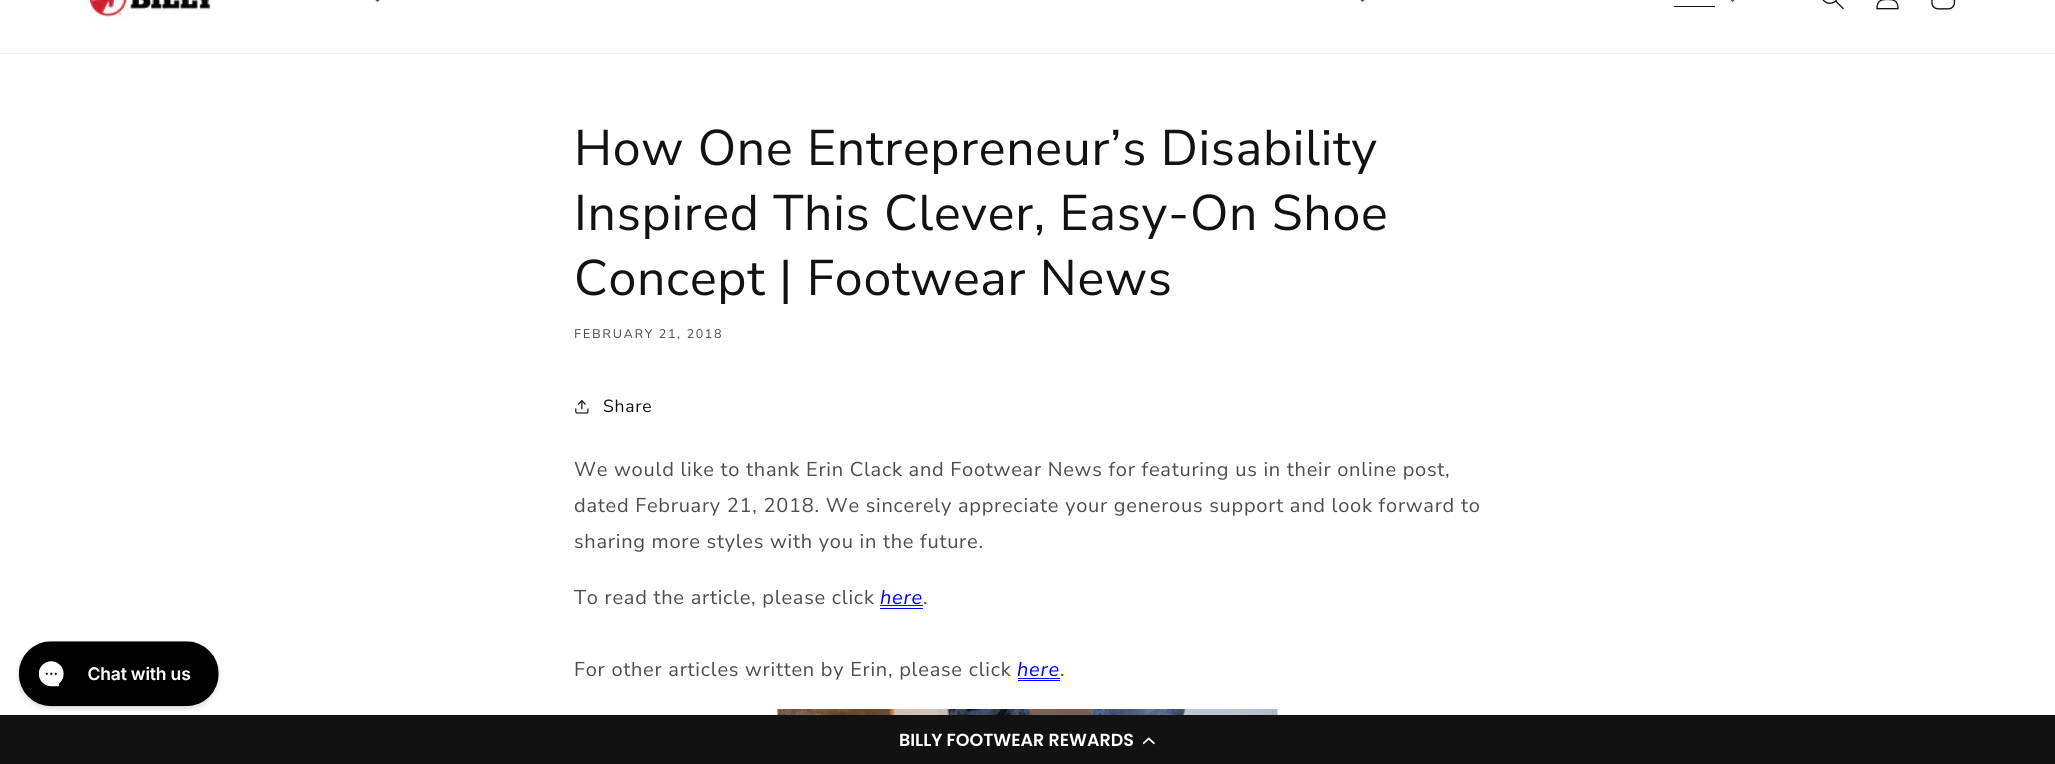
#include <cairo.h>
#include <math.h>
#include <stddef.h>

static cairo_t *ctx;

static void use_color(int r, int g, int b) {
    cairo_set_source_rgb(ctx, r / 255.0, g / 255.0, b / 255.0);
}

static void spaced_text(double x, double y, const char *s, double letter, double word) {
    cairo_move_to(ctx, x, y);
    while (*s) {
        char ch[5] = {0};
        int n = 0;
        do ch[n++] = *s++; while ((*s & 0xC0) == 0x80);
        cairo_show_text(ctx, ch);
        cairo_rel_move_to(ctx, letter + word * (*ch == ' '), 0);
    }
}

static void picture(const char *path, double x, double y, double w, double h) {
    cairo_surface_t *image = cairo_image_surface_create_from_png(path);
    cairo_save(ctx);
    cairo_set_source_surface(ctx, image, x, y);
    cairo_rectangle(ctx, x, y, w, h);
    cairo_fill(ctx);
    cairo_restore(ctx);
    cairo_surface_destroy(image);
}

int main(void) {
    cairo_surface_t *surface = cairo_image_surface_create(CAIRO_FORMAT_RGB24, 2055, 764);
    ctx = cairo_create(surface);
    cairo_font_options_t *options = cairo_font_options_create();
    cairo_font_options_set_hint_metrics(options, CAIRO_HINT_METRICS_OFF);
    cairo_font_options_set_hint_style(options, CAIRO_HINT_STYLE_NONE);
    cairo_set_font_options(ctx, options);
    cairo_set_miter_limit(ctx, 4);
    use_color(255, 255, 255);
    cairo_paint(ctx);
    use_color(236, 236, 236);
    cairo_rectangle(ctx, 0, 53, 2055, 1);
    cairo_fill(ctx);
    picture("img1.png", 90, 0, 121, 19);
    picture("img2.png", 375, 0, 5, 2);
    picture("img2.png", 1360, 0, 5, 2);
    picture("img2.png", 1730, 0, 5, 2);
    use_color(18, 18, 18);
    cairo_rectangle(ctx, 1674, 6, 41, 1);
    cairo_fill(ctx);
    picture("img3.png", 1822, 0, 22, 10);
    picture("img4.png", 1876, 0, 23, 10);
    picture("img5.png", 1931, 0, 25, 10);
    picture("img6.png", 16, 641, 205, 70);
    cairo_select_font_face(ctx, "Nunito Sans", CAIRO_FONT_SLANT_NORMAL, CAIRO_FONT_WEIGHT_NORMAL);
    cairo_set_font_size(ctx, 50);
    spaced_text(574, 165, "How One Entrepreneur’s Disability", 0.75, 0);
    spaced_text(574, 230, "Inspired This Clever, Easy-On Shoe", 0.75, 0);
    spaced_text(574, 295, "Concept | Footwear News", 0.75, 0);
    cairo_select_font_face(ctx, "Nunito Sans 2", CAIRO_FONT_SLANT_NORMAL, CAIRO_FONT_WEIGHT_NORMAL);
    cairo_set_font_size(ctx, 12.5);
    use_color(77, 77, 77);
    spaced_text(574, 338, "FEBRUARY 21, 2018", 1.6, 0);
    picture("img7.png", 575, 400, 14, 14);
    cairo_select_font_face(ctx, "Nunito Sans", CAIRO_FONT_SLANT_NORMAL, CAIRO_FONT_WEIGHT_NORMAL);
    cairo_set_font_size(ctx, 17.5);
    use_color(18, 18, 18);
    spaced_text(603, 412, "Share", 0.75, 0);
    cairo_set_font_size(ctx, 20);
    use_color(77, 77, 77);
    spaced_text(574, 476, "We would like to thank Erin Clack and Footwear News for featuring us in their online post,", 0.75, 0);
    spaced_text(574, 512, "dated February 21, 2018. We sincerely appreciate your generous support and look forward to", 0.75, 0);
    spaced_text(574, 548, "sharing more styles with you in the future.", 0.75, 0);
    spaced_text(574, 604, "To read the article, please click", 0.75, 0);
    cairo_select_font_face(ctx, "Nunito Sans", CAIRO_FONT_SLANT_ITALIC, CAIRO_FONT_WEIGHT_NORMAL);
    use_color(0, 0, 255);
    spaced_text(880, 604, "here", 0.75, 0);
    cairo_rectangle(ctx, 880, 608, 43, 1);
    cairo_fill(ctx);
    cairo_rectangle(ctx, 880, 605, 43, 1);
    cairo_fill(ctx);
    cairo_select_font_face(ctx, "Nunito Sans", CAIRO_FONT_SLANT_NORMAL, CAIRO_FONT_WEIGHT_NORMAL);
    use_color(77, 77, 77);
    spaced_text(923, 604, ".", 0.75, 0);
    spaced_text(574, 676, "For other articles written by Erin, please click", 0.75, 0);
    cairo_select_font_face(ctx, "Nunito Sans", CAIRO_FONT_SLANT_ITALIC, CAIRO_FONT_WEIGHT_NORMAL);
    use_color(0, 0, 255);
    spaced_text(1017, 676, "here", 0.75, 0);
    cairo_rectangle(ctx, 1018, 680, 42, 1);
    cairo_fill(ctx);
    cairo_rectangle(ctx, 1018, 678, 42, 1);
    cairo_fill(ctx);
    cairo_select_font_face(ctx, "Nunito Sans", CAIRO_FONT_SLANT_NORMAL, CAIRO_FONT_WEIGHT_NORMAL);
    use_color(77, 77, 77);
    spaced_text(1060, 676, ".", 0.75, 0);
    picture("img8.png", 777, 709, 501, 6);
    use_color(18, 18, 18);
    cairo_rectangle(ctx, 0, 715, 2055, 49);
    cairo_fill(ctx);
    cairo_select_font_face(ctx, "Poppins SemiBold", CAIRO_FONT_SLANT_NORMAL, CAIRO_FONT_WEIGHT_NORMAL);
    cairo_set_font_size(ctx, 17.5);
    use_color(255, 255, 255);
    cairo_move_to(ctx, 899, 746);
    cairo_show_text(ctx, "BILLY FOOTWEAR REWARDS");
    picture("img9.png", 1143, 737, 12, 8);
    cairo_surface_write_to_png(surface, "result.png");
    cairo_font_options_destroy(options);
    cairo_destroy(ctx);
    cairo_surface_destroy(surface);
    return 0;
}
